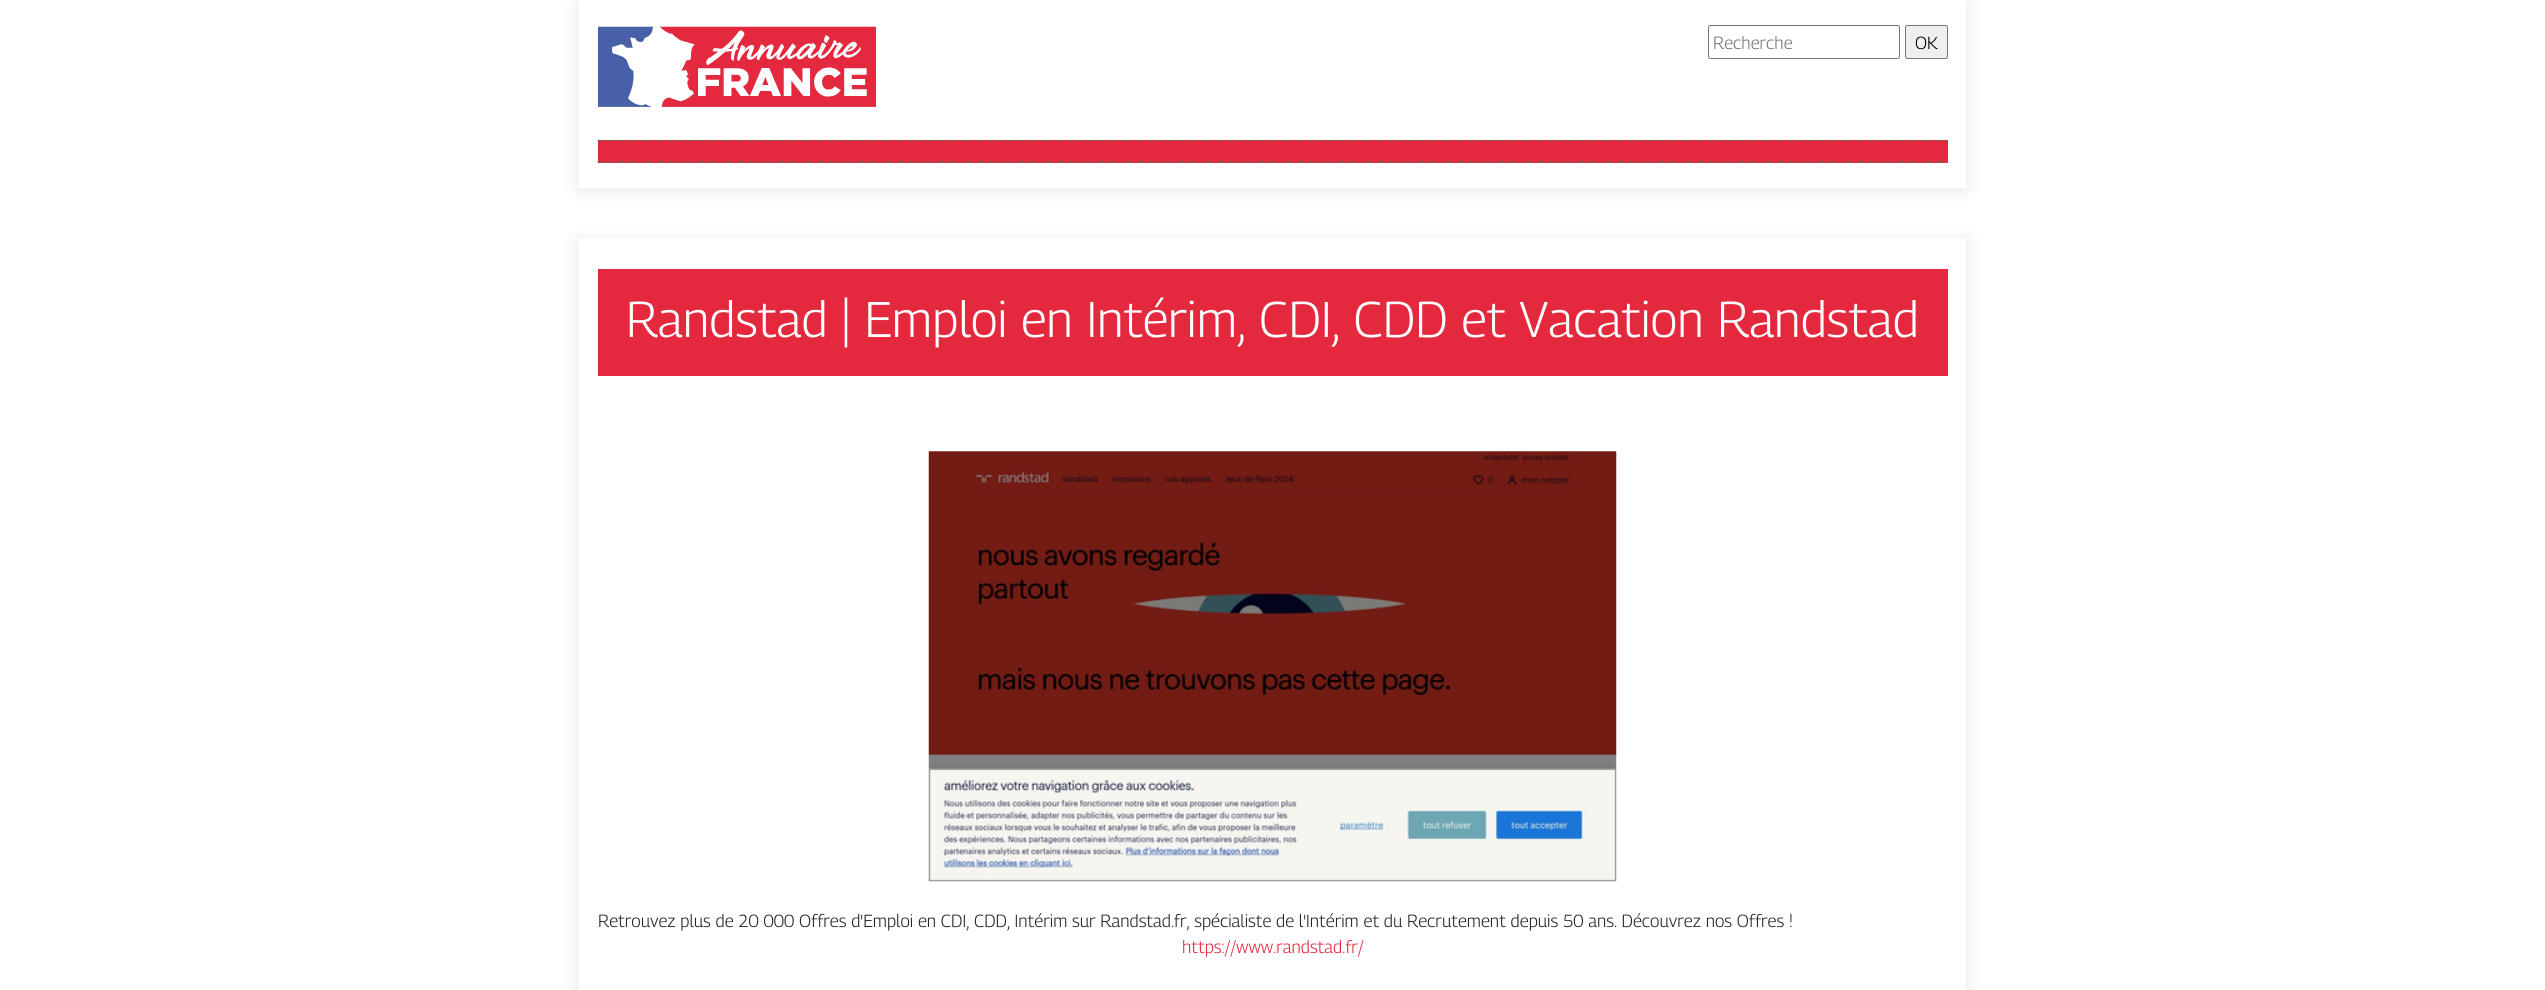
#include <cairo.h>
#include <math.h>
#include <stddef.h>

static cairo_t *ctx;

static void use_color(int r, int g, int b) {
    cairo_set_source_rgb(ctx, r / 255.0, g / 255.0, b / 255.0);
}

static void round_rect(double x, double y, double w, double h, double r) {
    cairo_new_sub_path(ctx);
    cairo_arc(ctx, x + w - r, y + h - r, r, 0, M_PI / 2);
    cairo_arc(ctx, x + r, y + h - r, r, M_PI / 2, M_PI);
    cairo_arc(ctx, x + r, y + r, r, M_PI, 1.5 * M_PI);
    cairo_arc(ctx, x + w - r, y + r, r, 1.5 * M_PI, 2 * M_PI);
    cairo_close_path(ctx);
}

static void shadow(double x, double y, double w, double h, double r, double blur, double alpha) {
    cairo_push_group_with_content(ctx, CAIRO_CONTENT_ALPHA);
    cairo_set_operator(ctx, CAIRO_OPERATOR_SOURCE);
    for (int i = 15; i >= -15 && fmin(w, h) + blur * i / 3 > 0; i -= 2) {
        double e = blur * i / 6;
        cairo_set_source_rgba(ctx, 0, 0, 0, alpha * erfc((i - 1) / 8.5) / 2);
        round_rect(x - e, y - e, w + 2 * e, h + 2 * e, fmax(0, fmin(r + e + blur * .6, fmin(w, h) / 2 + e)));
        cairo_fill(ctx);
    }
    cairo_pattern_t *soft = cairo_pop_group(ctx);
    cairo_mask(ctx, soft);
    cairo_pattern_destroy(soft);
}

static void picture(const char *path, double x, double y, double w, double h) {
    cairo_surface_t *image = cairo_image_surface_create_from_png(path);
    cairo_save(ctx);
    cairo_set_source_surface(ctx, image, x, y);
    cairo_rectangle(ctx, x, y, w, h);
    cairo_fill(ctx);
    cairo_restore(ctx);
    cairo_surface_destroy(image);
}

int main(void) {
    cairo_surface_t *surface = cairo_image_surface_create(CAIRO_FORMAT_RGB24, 2545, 990);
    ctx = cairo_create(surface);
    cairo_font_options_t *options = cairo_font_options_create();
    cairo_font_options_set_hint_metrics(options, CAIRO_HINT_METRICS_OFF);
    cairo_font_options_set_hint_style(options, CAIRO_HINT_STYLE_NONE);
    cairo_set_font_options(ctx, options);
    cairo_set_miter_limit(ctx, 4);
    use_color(255, 255, 255);
    cairo_paint(ctx);
    use_color(0, 0, 0);
    shadow(579, 3, 1387, 187, 0, 8, 0.1);
    use_color(255, 255, 255);
    cairo_rectangle(ctx, 579, 0, 1387, 188);
    cairo_fill(ctx);
    picture("img1.png", 598, 26, 278, 81);
    round_rect(1708.5, 25.5, 191, 33, 2);
    use_color(118, 118, 118);
    cairo_set_line_width(ctx, 1);
    cairo_stroke(ctx);
    cairo_select_font_face(ctx, "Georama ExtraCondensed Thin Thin", CAIRO_FONT_SLANT_NORMAL, CAIRO_FONT_WEIGHT_NORMAL);
    cairo_set_font_size(ctx, 17.5);
    use_color(117, 117, 117);
    cairo_move_to(ctx, 1713, 49);
    cairo_show_text(ctx, "Recherche");
    use_color(239, 239, 239);
    round_rect(1905.5, 25.5, 42, 33, 2);
    cairo_fill_preserve(ctx);
    use_color(118, 118, 118);
    cairo_stroke(ctx);
    use_color(0, 0, 0);
    cairo_move_to(ctx, 1915, 49);
    cairo_show_text(ctx, "OK");
    use_color(228, 40, 61);
    cairo_rectangle(ctx, 598, 140, 1350, 23);
    cairo_fill(ctx);
    cairo_new_path(ctx);
    cairo_move_to(ctx, 597.5, 140.5);
    cairo_line_to(ctx, 1947.5, 140.5);
    use_color(102, 102, 102);
    cairo_set_line_width(ctx, 1.2);
    cairo_set_dash(ctx, (double[]){1.25, 1.25}, 2, 0);
    cairo_stroke(ctx);
    cairo_new_path(ctx);
    cairo_move_to(ctx, 597.5, 162);
    cairo_line_to(ctx, 1947.5, 162);
    cairo_stroke(ctx);
    cairo_save(ctx);
    cairo_set_fill_rule(ctx, CAIRO_FILL_RULE_EVEN_ODD);
    cairo_new_path(ctx);
    cairo_move_to(ctx, 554, 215);
    cairo_line_to(ctx, 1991, 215);
    cairo_line_to(ctx, 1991, 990);
    cairo_line_to(ctx, 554, 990);
    cairo_close_path(ctx);
    cairo_move_to(ctx, 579, 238);
    cairo_line_to(ctx, 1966, 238);
    cairo_line_to(ctx, 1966, 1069);
    cairo_line_to(ctx, 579, 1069);
    cairo_close_path(ctx);
    cairo_clip(ctx);
    use_color(0, 0, 0);
    shadow(579, 240, 1387, 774, 0, 8, 0.1);
    cairo_restore(ctx);
    use_color(228, 40, 61);
    cairo_rectangle(ctx, 598, 269, 1350, 107);
    cairo_fill(ctx);
    cairo_set_font_size(ctx, 50);
    use_color(255, 255, 255);
    cairo_move_to(ctx, 626, 337);
    cairo_show_text(ctx, "Randstad | Emploi en Intérim, CDI, CDD et Vacation Randstad");
    picture("img2.png", 928, 451, 689, 431);
    cairo_set_font_size(ctx, 17.5);
    use_color(33, 37, 41);
    cairo_move_to(ctx, 598, 927);
    cairo_show_text(ctx, "Retrouvez plus de 20 000 Offres d'Emploi en CDI, CDD, Intérim sur Randstad.fr, spécialiste de l'Intérim et du Recrutement depuis 50 ans. Découvrez nos Offres !");
    use_color(228, 40, 61);
    cairo_move_to(ctx, 1182, 953);
    cairo_show_text(ctx, "https://www.randstad.fr/");
    cairo_surface_write_to_png(surface, "result.png");
    cairo_font_options_destroy(options);
    cairo_destroy(ctx);
    cairo_surface_destroy(surface);
    return 0;
}
